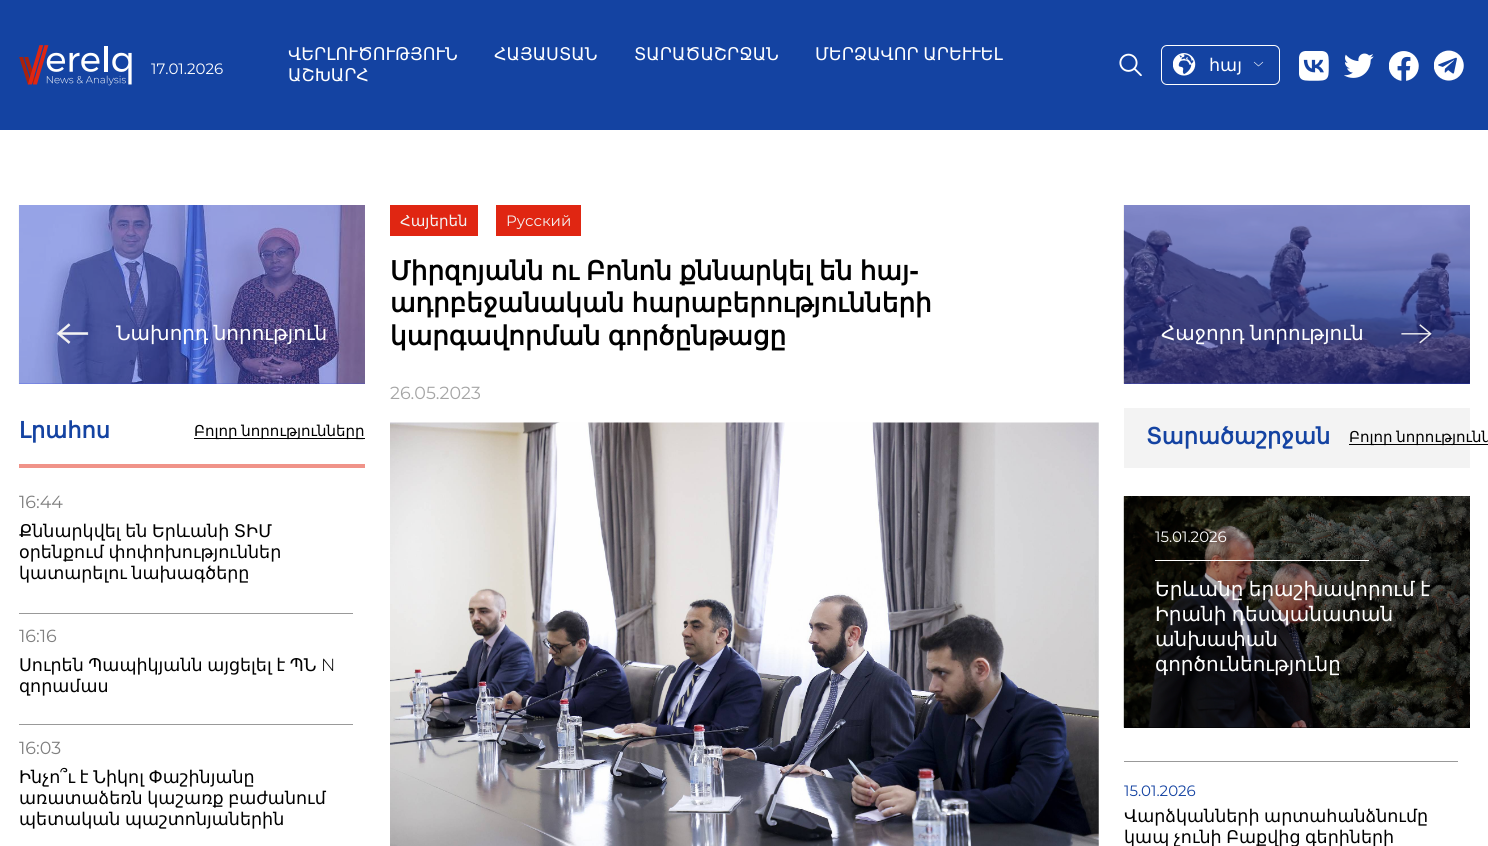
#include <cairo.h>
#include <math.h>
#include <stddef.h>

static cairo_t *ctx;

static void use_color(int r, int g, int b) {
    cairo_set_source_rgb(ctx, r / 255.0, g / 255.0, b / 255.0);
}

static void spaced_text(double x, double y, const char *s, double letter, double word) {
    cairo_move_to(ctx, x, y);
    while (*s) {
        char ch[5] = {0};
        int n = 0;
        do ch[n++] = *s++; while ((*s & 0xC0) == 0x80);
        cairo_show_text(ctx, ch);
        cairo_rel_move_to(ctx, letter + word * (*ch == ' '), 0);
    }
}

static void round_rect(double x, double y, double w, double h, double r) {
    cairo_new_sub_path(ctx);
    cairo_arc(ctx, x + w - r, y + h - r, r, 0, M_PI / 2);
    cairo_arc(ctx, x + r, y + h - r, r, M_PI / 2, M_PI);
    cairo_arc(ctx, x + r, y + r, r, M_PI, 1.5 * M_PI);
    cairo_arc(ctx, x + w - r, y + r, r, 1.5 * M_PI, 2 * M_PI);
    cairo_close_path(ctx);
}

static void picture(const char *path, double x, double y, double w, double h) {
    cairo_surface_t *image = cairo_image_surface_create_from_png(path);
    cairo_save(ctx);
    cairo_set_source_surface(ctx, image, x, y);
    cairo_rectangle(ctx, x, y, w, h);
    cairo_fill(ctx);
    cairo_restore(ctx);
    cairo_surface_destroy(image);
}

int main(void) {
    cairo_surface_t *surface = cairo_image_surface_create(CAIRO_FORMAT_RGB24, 1488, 846);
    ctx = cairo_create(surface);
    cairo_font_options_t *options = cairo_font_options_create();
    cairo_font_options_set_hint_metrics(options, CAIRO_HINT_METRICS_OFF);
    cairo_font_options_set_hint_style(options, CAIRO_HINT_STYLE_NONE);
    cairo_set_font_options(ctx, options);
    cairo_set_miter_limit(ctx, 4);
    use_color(255, 255, 255);
    cairo_paint(ctx);
    use_color(20, 67, 162);
    cairo_rectangle(ctx, 0, 0, 1488, 130);
    cairo_fill(ctx);
    picture("img1.png", 19, 45, 113, 41);
    cairo_select_font_face(ctx, "Montserrat", CAIRO_FONT_SLANT_NORMAL, CAIRO_FONT_WEIGHT_NORMAL);
    cairo_set_font_size(ctx, 15);
    use_color(255, 255, 255);
    cairo_move_to(ctx, 151, 74);
    cairo_show_text(ctx, "17.01.2026");
    cairo_select_font_face(ctx, "DejaVu Sans", CAIRO_FONT_SLANT_NORMAL, CAIRO_FONT_WEIGHT_NORMAL);
    cairo_set_font_size(ctx, 17.5);
    cairo_move_to(ctx, 288, 60);
    cairo_show_text(ctx, "ՎԵՐԼՈՒԾՈՒԹՅՈՒՆ");
    cairo_move_to(ctx, 494, 60);
    cairo_show_text(ctx, "ՀԱՅԱՍՏԱՆ");
    cairo_move_to(ctx, 634, 60);
    cairo_show_text(ctx, "ՏԱՐԱԾԱՇՐՋԱՆ");
    spaced_text(815, 60, "ՄԵՐՁԱՎՈՐ ԱՐ", 0, -1);
    cairo_move_to(ctx, 949, 60);
    cairo_show_text(ctx, "ԵՒՒԵԼ");
    cairo_move_to(ctx, 288, 81);
    cairo_show_text(ctx, "ԱՇԽԱՐՀ");
    picture("img2.png", 1119, 53, 23, 23);
    round_rect(1161.5, 45.5, 118, 39, 5.5);
    cairo_set_line_width(ctx, 1);
    cairo_stroke(ctx);
    picture("img3.png", 1173, 53, 23, 23);
    cairo_move_to(ctx, 1209, 71);
    cairo_show_text(ctx, "հայ");
    cairo_new_path(ctx);
    cairo_move_to(ctx, 1254, 62);
    cairo_line_to(ctx, 1258.5, 66);
    cairo_line_to(ctx, 1263, 62);
    cairo_set_line_width(ctx, 0.6);
    cairo_stroke(ctx);
    picture("img4.png", 1299, 51, 30, 30);
    picture("img5.png", 1344, 53, 30, 25);
    picture("img6.png", 1389, 51, 30, 30);
    picture("img7.png", 1434, 50, 30, 31);
    use_color(53, 71, 233);
    cairo_rectangle(ctx, 19, 205, 346, 179);
    cairo_fill(ctx);
    picture("img8.png", 18, 205, 347, 179);
    picture("img9.png", 56, 323, 33, 21);
    cairo_set_font_size(ctx, 20);
    use_color(255, 255, 255);
    spaced_text(116, 340, "Նախորդ նորություն", 0, -1);
    use_color(240, 147, 137);
    cairo_rectangle(ctx, 19, 464, 346, 4);
    cairo_fill(ctx);
    cairo_select_font_face(ctx, "DejaVu Sans", CAIRO_FONT_SLANT_NORMAL, CAIRO_FONT_WEIGHT_BOLD);
    cairo_set_font_size(ctx, 22.5);
    use_color(20, 67, 162);
    cairo_move_to(ctx, 19, 438);
    cairo_show_text(ctx, "Լրահոս");
    use_color(0, 0, 0);
    cairo_rectangle(ctx, 194, 438, 171, 1);
    cairo_fill(ctx);
    cairo_select_font_face(ctx, "DejaVu Sans", CAIRO_FONT_SLANT_NORMAL, CAIRO_FONT_WEIGHT_NORMAL);
    cairo_set_font_size(ctx, 15);
    spaced_text(194, 436, "Բոլոր նորությունները", 0, -1);
    use_color(153, 153, 153);
    cairo_rectangle(ctx, 19, 613, 334, 1);
    cairo_fill(ctx);
    cairo_select_font_face(ctx, "Montserrat", CAIRO_FONT_SLANT_NORMAL, CAIRO_FONT_WEIGHT_NORMAL);
    cairo_set_font_size(ctx, 17.5);
    use_color(128, 128, 128);
    cairo_move_to(ctx, 19, 508);
    cairo_show_text(ctx, "16:44");
    cairo_select_font_face(ctx, "DejaVu Sans", CAIRO_FONT_SLANT_NORMAL, CAIRO_FONT_WEIGHT_NORMAL);
    use_color(0, 0, 0);
    spaced_text(19, 537, "Քննարկվել են Երևանի ՏԻՄ", 0, -1);
    spaced_text(19, 558, "օրենքում փոփոխություններ", 0, -1);
    spaced_text(19, 579, "կատարելու նախագծերը", 0, -1);
    use_color(153, 153, 153);
    cairo_rectangle(ctx, 19, 724, 334, 1);
    cairo_fill(ctx);
    cairo_select_font_face(ctx, "Montserrat", CAIRO_FONT_SLANT_NORMAL, CAIRO_FONT_WEIGHT_NORMAL);
    use_color(128, 128, 128);
    cairo_move_to(ctx, 19, 642);
    cairo_show_text(ctx, "16:16");
    cairo_select_font_face(ctx, "DejaVu Sans", CAIRO_FONT_SLANT_NORMAL, CAIRO_FONT_WEIGHT_NORMAL);
    use_color(0, 0, 0);
    spaced_text(19, 671, "Սուրեն Պապիկյանն այցելել է ՊՆ", 0, -1);
    cairo_select_font_face(ctx, "Montserrat Light", CAIRO_FONT_SLANT_NORMAL, CAIRO_FONT_WEIGHT_NORMAL);
    cairo_move_to(ctx, 321, 671);
    cairo_show_text(ctx, "N");
    cairo_select_font_face(ctx, "DejaVu Sans", CAIRO_FONT_SLANT_NORMAL, CAIRO_FONT_WEIGHT_NORMAL);
    cairo_move_to(ctx, 19, 692);
    cairo_show_text(ctx, "զորամաս");
    cairo_select_font_face(ctx, "Montserrat", CAIRO_FONT_SLANT_NORMAL, CAIRO_FONT_WEIGHT_NORMAL);
    use_color(128, 128, 128);
    cairo_move_to(ctx, 19, 754);
    cairo_show_text(ctx, "16:03");
    cairo_select_font_face(ctx, "DejaVu Sans", CAIRO_FONT_SLANT_NORMAL, CAIRO_FONT_WEIGHT_NORMAL);
    use_color(0, 0, 0);
    spaced_text(19, 783, "Ինչո՞ւ է Նիկոլ Փաշինյանը", 0, -1);
    spaced_text(19, 804, "առատաձեռն կաշառք բաժանում", 0, -1);
    spaced_text(19, 825, "պետական պաշտոնյաներին", 0, -1);
    use_color(224, 38, 18);
    cairo_rectangle(ctx, 390, 205, 88, 31);
    cairo_fill(ctx);
    cairo_set_font_size(ctx, 15);
    use_color(243, 243, 243);
    cairo_move_to(ctx, 400, 226);
    cairo_show_text(ctx, "Հայերեն");
    use_color(224, 38, 18);
    cairo_rectangle(ctx, 496, 205, 85, 31);
    cairo_fill(ctx);
    cairo_select_font_face(ctx, "Montserrat", CAIRO_FONT_SLANT_NORMAL, CAIRO_FONT_WEIGHT_NORMAL);
    use_color(243, 243, 243);
    cairo_move_to(ctx, 506, 226);
    cairo_show_text(ctx, "Русский");
    cairo_select_font_face(ctx, "DejaVu Sans", CAIRO_FONT_SLANT_NORMAL, CAIRO_FONT_WEIGHT_BOLD);
    cairo_set_font_size(ctx, 26.25);
    use_color(0, 0, 0);
    spaced_text(390, 280, "Միրզոյանն ու Բոնոն քննարկել են հայ", 0, -1);
    cairo_select_font_face(ctx, "Montserrat", CAIRO_FONT_SLANT_NORMAL, CAIRO_FONT_WEIGHT_BOLD);
    cairo_move_to(ctx, 909, 280);
    cairo_show_text(ctx, "-");
    cairo_select_font_face(ctx, "DejaVu Sans", CAIRO_FONT_SLANT_NORMAL, CAIRO_FONT_WEIGHT_BOLD);
    spaced_text(390, 312, "ադրբեջանական հարաբերությունների", 0, -1);
    spaced_text(390, 345, "կարգավորման գործընթացը", 0, -1);
    cairo_select_font_face(ctx, "Montserrat", CAIRO_FONT_SLANT_NORMAL, CAIRO_FONT_WEIGHT_NORMAL);
    cairo_set_font_size(ctx, 17.5);
    use_color(165, 165, 165);
    cairo_move_to(ctx, 390, 399);
    cairo_show_text(ctx, "26.05.2023");
    picture("img10.png", 390, 422, 709, 424);
    use_color(53, 71, 233);
    cairo_rectangle(ctx, 1124, 205, 346, 179);
    cairo_fill(ctx);
    picture("img11.png", 1123, 205, 347, 179);
    cairo_select_font_face(ctx, "DejaVu Sans", CAIRO_FONT_SLANT_NORMAL, CAIRO_FONT_WEIGHT_NORMAL);
    cairo_set_font_size(ctx, 20);
    use_color(255, 255, 255);
    spaced_text(1161, 340, "Հաջորդ նորություն", 0, -1);
    picture("img12.png", 1401, 324, 31, 20);
    use_color(243, 243, 243);
    cairo_rectangle(ctx, 1124, 408, 346, 60);
    cairo_fill(ctx);
    cairo_select_font_face(ctx, "DejaVu Sans", CAIRO_FONT_SLANT_NORMAL, CAIRO_FONT_WEIGHT_BOLD);
    cairo_set_font_size(ctx, 22.5);
    use_color(20, 67, 162);
    cairo_move_to(ctx, 1146, 444);
    cairo_show_text(ctx, "Տարածաշրջան");
    use_color(0, 0, 0);
    cairo_rectangle(ctx, 1349, 444, 139, 1);
    cairo_fill(ctx);
    cairo_select_font_face(ctx, "DejaVu Sans", CAIRO_FONT_SLANT_NORMAL, CAIRO_FONT_WEIGHT_NORMAL);
    cairo_set_font_size(ctx, 15);
    spaced_text(1349, 442, "Բոլոր նորությունն", 0, -1);
    cairo_rectangle(ctx, 1124, 496, 346, 232);
    cairo_fill(ctx);
    picture("img13.png", 1123, 496, 347, 232);
    use_color(255, 255, 255);
    cairo_rectangle(ctx, 1155, 560, 214, 1);
    cairo_fill(ctx);
    cairo_select_font_face(ctx, "Montserrat", CAIRO_FONT_SLANT_NORMAL, CAIRO_FONT_WEIGHT_NORMAL);
    cairo_move_to(ctx, 1155, 542);
    cairo_show_text(ctx, "15.01.2026");
    cairo_select_font_face(ctx, "DejaVu Sans", CAIRO_FONT_SLANT_NORMAL, CAIRO_FONT_WEIGHT_NORMAL);
    cairo_set_font_size(ctx, 20);
    spaced_text(1155, 596, "Երևանը երաշխավորում է", 0, -1);
    spaced_text(1155, 621, "Իրանի դեսպանատան", 0, -1);
    cairo_move_to(ctx, 1155, 646);
    cairo_show_text(ctx, "անխափան");
    cairo_move_to(ctx, 1155, 671);
    cairo_show_text(ctx, "գործունեությունը");
    use_color(153, 153, 153);
    cairo_rectangle(ctx, 1124, 761, 334, 1);
    cairo_fill(ctx);
    cairo_select_font_face(ctx, "Montserrat", CAIRO_FONT_SLANT_NORMAL, CAIRO_FONT_WEIGHT_NORMAL);
    cairo_set_font_size(ctx, 15);
    use_color(20, 67, 162);
    cairo_move_to(ctx, 1124, 796);
    cairo_show_text(ctx, "15.01.2026");
    cairo_select_font_face(ctx, "DejaVu Sans", CAIRO_FONT_SLANT_NORMAL, CAIRO_FONT_WEIGHT_NORMAL);
    cairo_set_font_size(ctx, 17.5);
    use_color(0, 0, 0);
    spaced_text(1124, 822, "Վարձկանների արտահանձնումը", 0, -1);
    spaced_text(1124, 843, "կապ չունի Բաքվից գերիների", 0, -1);
    cairo_surface_write_to_png(surface, "result.png");
    cairo_font_options_destroy(options);
    cairo_destroy(ctx);
    cairo_surface_destroy(surface);
    return 0;
}
